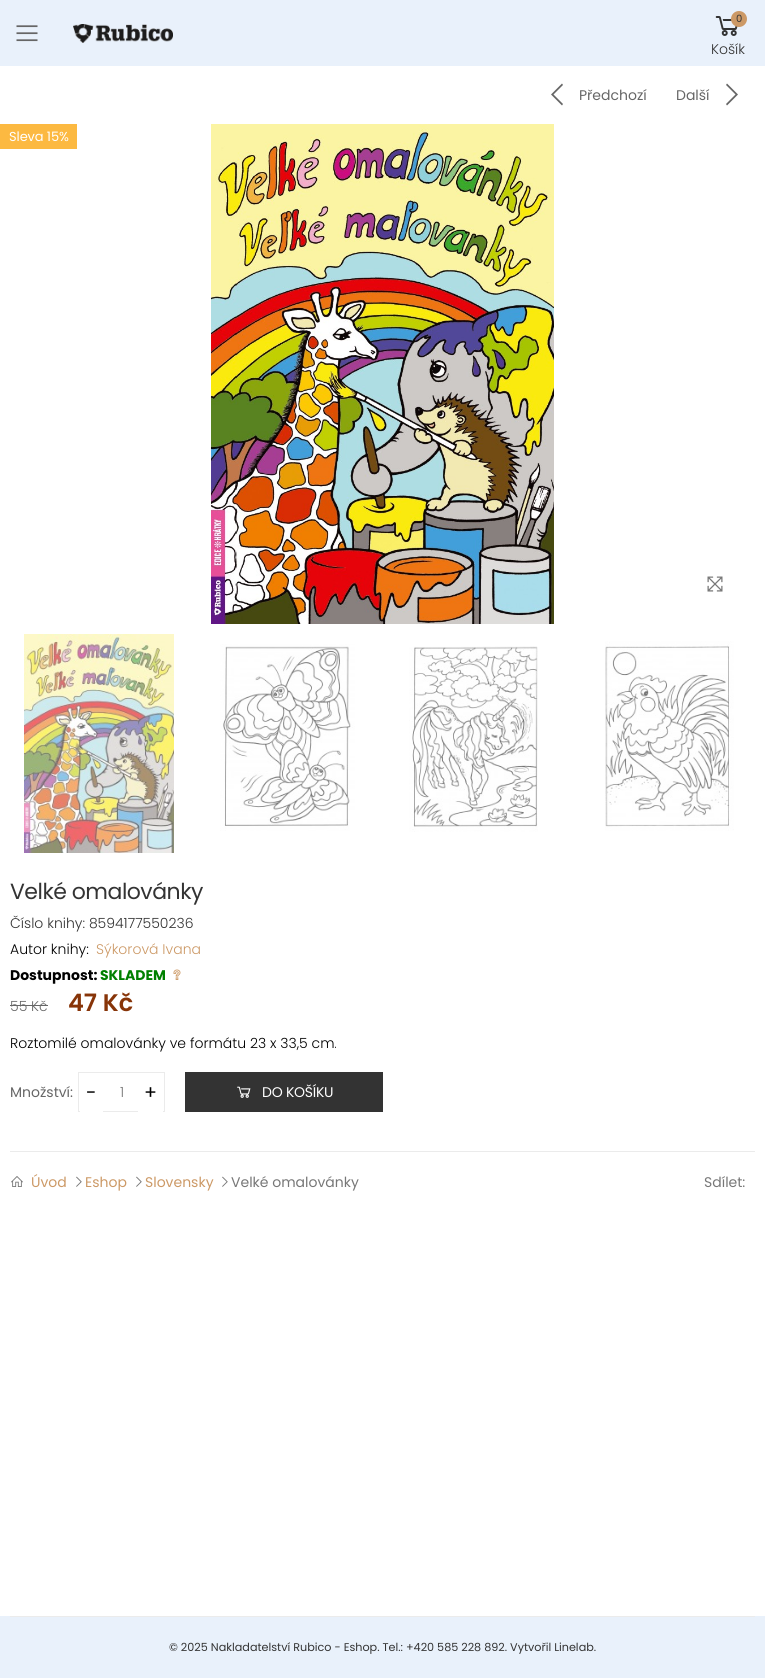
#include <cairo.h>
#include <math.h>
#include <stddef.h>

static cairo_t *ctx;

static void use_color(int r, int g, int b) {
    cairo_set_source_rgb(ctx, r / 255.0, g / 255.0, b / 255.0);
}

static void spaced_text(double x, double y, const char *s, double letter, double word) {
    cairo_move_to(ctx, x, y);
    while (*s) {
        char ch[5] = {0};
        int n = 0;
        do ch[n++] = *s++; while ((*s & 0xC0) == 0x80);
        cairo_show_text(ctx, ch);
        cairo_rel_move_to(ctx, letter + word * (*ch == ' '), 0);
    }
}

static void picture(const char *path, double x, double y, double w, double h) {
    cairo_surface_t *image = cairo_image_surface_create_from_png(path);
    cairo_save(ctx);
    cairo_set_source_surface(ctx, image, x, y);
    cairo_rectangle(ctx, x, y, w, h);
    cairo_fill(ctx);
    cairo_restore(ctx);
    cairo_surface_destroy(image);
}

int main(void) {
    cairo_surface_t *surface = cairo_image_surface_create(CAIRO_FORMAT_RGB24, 765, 1678);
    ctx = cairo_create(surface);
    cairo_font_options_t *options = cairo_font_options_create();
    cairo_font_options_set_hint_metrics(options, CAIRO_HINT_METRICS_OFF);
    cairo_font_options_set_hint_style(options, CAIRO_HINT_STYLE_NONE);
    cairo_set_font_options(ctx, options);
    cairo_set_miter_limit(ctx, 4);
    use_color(255, 255, 255);
    cairo_paint(ctx);
    use_color(233, 241, 251);
    cairo_rectangle(ctx, 0, 0, 765, 66);
    cairo_fill(ctx);
    picture("img1.png", 16, 25, 22, 17);
    picture("img2.png", 73, 24, 100, 19);
    picture("img3.png", 715, 16, 23, 20);
    use_color(204, 153, 102);
    cairo_arc(ctx, 739, 19, 8, 0, 2 * M_PI);
    cairo_fill(ctx);
    cairo_select_font_face(ctx, "Poppins", CAIRO_FONT_SLANT_NORMAL, CAIRO_FONT_WEIGHT_NORMAL);
    cairo_set_font_size(ctx, 10);
    use_color(51, 51, 51);
    cairo_move_to(ctx, 736, 22);
    cairo_show_text(ctx, "0");
    cairo_select_font_face(ctx, "Poppins Light", CAIRO_FONT_SLANT_NORMAL, CAIRO_FONT_WEIGHT_NORMAL);
    cairo_set_font_size(ctx, 14);
    cairo_move_to(ctx, 711, 54);
    cairo_show_text(ctx, "Košík");
    use_color(102, 102, 102);
    cairo_new_path(ctx);
    cairo_move_to(ctx, 562, 83.5);
    cairo_line_to(ctx, 563, 85);
    cairo_line_to(ctx, 553.5, 94.5);
    cairo_line_to(ctx, 563, 104);
    cairo_line_to(ctx, 562, 105.5);
    cairo_line_to(ctx, 551, 94.5);
    cairo_close_path(ctx);
    cairo_fill(ctx);
    cairo_select_font_face(ctx, "Poppins", CAIRO_FONT_SLANT_NORMAL, CAIRO_FONT_WEIGHT_NORMAL);
    cairo_move_to(ctx, 579, 100);
    cairo_show_text(ctx, "Předchozí");
    cairo_move_to(ctx, 676, 100);
    cairo_show_text(ctx, "Další");
    cairo_new_path(ctx);
    cairo_move_to(ctx, 727, 83.5);
    cairo_line_to(ctx, 738, 94.5);
    cairo_line_to(ctx, 727, 105.5);
    cairo_line_to(ctx, 726, 104);
    cairo_line_to(ctx, 735.5, 94.5);
    cairo_line_to(ctx, 726, 85);
    cairo_close_path(ctx);
    cairo_fill(ctx);
    use_color(252, 185, 65);
    cairo_rectangle(ctx, 0, 124, 77, 25);
    cairo_fill(ctx);
    cairo_set_font_size(ctx, 13);
    use_color(255, 255, 255);
    spaced_text(9, 141, "Sleva 15%", -0.1, 0);
    picture("img4.png", 211, 124, 343, 500);
    picture("img5.png", 707, 576, 16, 16);
    picture("img6.png", 24, 634, 150, 219);
    picture("img7.png", 220, 644, 135, 187);
    picture("img8.png", 409, 646, 129, 186);
    picture("img9.png", 605, 641, 129, 190);
    cairo_set_font_size(ctx, 22);
    use_color(51, 51, 51);
    spaced_text(10, 899, "Velké omalovánky", -0.5, 0);
    cairo_select_font_face(ctx, "Poppins Light", CAIRO_FONT_SLANT_NORMAL, CAIRO_FONT_WEIGHT_NORMAL);
    cairo_set_font_size(ctx, 14);
    cairo_move_to(ctx, 10, 928);
    cairo_show_text(ctx, "Číslo knihy: 8594177550236");
    use_color(0, 0, 0);
    cairo_move_to(ctx, 10, 954);
    cairo_show_text(ctx, "Autor knihy:");
    use_color(204, 153, 102);
    cairo_move_to(ctx, 96, 954);
    cairo_show_text(ctx, "Sýkorová Ivana");
    cairo_select_font_face(ctx, "Poppins", CAIRO_FONT_SLANT_NORMAL, CAIRO_FONT_WEIGHT_BOLD);
    use_color(0, 0, 0);
    cairo_move_to(ctx, 10, 980);
    cairo_show_text(ctx, "Dostupnost:");
    use_color(0, 128, 0);
    cairo_move_to(ctx, 100, 980);
    cairo_show_text(ctx, "SKLADEM");
    picture("img10.png", 173, 969, 8, 11);
    cairo_select_font_face(ctx, "Poppins Light", CAIRO_FONT_SLANT_NORMAL, CAIRO_FONT_WEIGHT_NORMAL);
    use_color(102, 102, 102);
    cairo_move_to(ctx, 10, 1011);
    cairo_show_text(ctx, "55 Kč");
    cairo_rectangle(ctx, 10, 1005, 38, 1);
    cairo_fill(ctx);
    cairo_select_font_face(ctx, "Poppins SemiBold", CAIRO_FONT_SLANT_NORMAL, CAIRO_FONT_WEIGHT_NORMAL);
    cairo_set_font_size(ctx, 24);
    use_color(135, 52, 8);
    cairo_move_to(ctx, 68, 1011);
    cairo_show_text(ctx, "47 Kč");
    cairo_select_font_face(ctx, "Poppins Light", CAIRO_FONT_SLANT_NORMAL, CAIRO_FONT_WEIGHT_NORMAL);
    cairo_set_font_size(ctx, 14);
    use_color(0, 0, 0);
    cairo_move_to(ctx, 10, 1048);
    cairo_show_text(ctx, "Roztomilé omalovánky ve formátu 23 x 33,5 cm.");
    cairo_select_font_face(ctx, "Poppins", CAIRO_FONT_SLANT_NORMAL, CAIRO_FONT_WEIGHT_NORMAL);
    use_color(102, 102, 102);
    cairo_move_to(ctx, 10, 1097);
    cairo_show_text(ctx, "Množství:");
    cairo_rectangle(ctx, 78.5, 1072.5, 86, 39);
    use_color(235, 235, 235);
    cairo_set_line_width(ctx, 1);
    cairo_stroke(ctx);
    cairo_select_font_face(ctx, "Poppins Light", CAIRO_FONT_SLANT_NORMAL, CAIRO_FONT_WEIGHT_NORMAL);
    use_color(119, 119, 119);
    cairo_move_to(ctx, 120, 1097);
    cairo_show_text(ctx, "1");
    use_color(255, 255, 255);
    cairo_rectangle(ctx, 80, 1111, 23, 1);
    cairo_fill(ctx);
    cairo_select_font_face(ctx, "Poppins", CAIRO_FONT_SLANT_NORMAL, CAIRO_FONT_WEIGHT_NORMAL);
    cairo_set_font_size(ctx, 19);
    use_color(0, 0, 0);
    cairo_move_to(ctx, 86, 1099);
    cairo_show_text(ctx, "-");
    use_color(255, 255, 255);
    cairo_rectangle(ctx, 138, 1111, 25, 1);
    cairo_fill(ctx);
    use_color(0, 0, 0);
    cairo_move_to(ctx, 144, 1099);
    cairo_show_text(ctx, "+");
    use_color(51, 51, 51);
    cairo_rectangle(ctx, 185, 1072, 198, 40);
    cairo_fill(ctx);
    picture("img11.png", 237, 1086, 14, 12);
    cairo_set_font_size(ctx, 14);
    use_color(255, 255, 255);
    spaced_text(262, 1097, "DO KOŠÍKU", -0.25, 0);
    use_color(235, 235, 235);
    cairo_rectangle(ctx, 10, 1151, 745, 1);
    cairo_fill(ctx);
    picture("img12.png", 11, 1176, 12, 11);
    use_color(204, 153, 102);
    cairo_move_to(ctx, 31, 1187);
    cairo_show_text(ctx, "Úvod");
    picture("img13.png", 76, 1176, 6, 11);
    cairo_move_to(ctx, 85, 1187);
    cairo_show_text(ctx, "Eshop");
    picture("img13.png", 136, 1176, 6, 11);
    cairo_move_to(ctx, 145, 1187);
    cairo_show_text(ctx, "Slovensky");
    picture("img13.png", 222, 1176, 6, 11);
    use_color(119, 119, 119);
    cairo_move_to(ctx, 231, 1187);
    cairo_show_text(ctx, "Velké omalovánky");
    cairo_move_to(ctx, 704, 1187);
    cairo_show_text(ctx, "Sdílet:");
    use_color(233, 241, 251);
    cairo_rectangle(ctx, 0, 1616, 765, 62);
    cairo_fill(ctx);
    use_color(235, 235, 235);
    cairo_rectangle(ctx, 10, 1616, 745, 1);
    cairo_fill(ctx);
    cairo_set_font_size(ctx, 11.2);
    use_color(51, 51, 51);
    cairo_move_to(ctx, 169, 1651);
    cairo_show_text(ctx, "© 2025 Nakladatelství Rubico - Eshop. Tel.: +420 585 228 892. Vytvořil Linelab.");
    cairo_surface_write_to_png(surface, "result.png");
    cairo_font_options_destroy(options);
    cairo_destroy(ctx);
    cairo_surface_destroy(surface);
    return 0;
}
